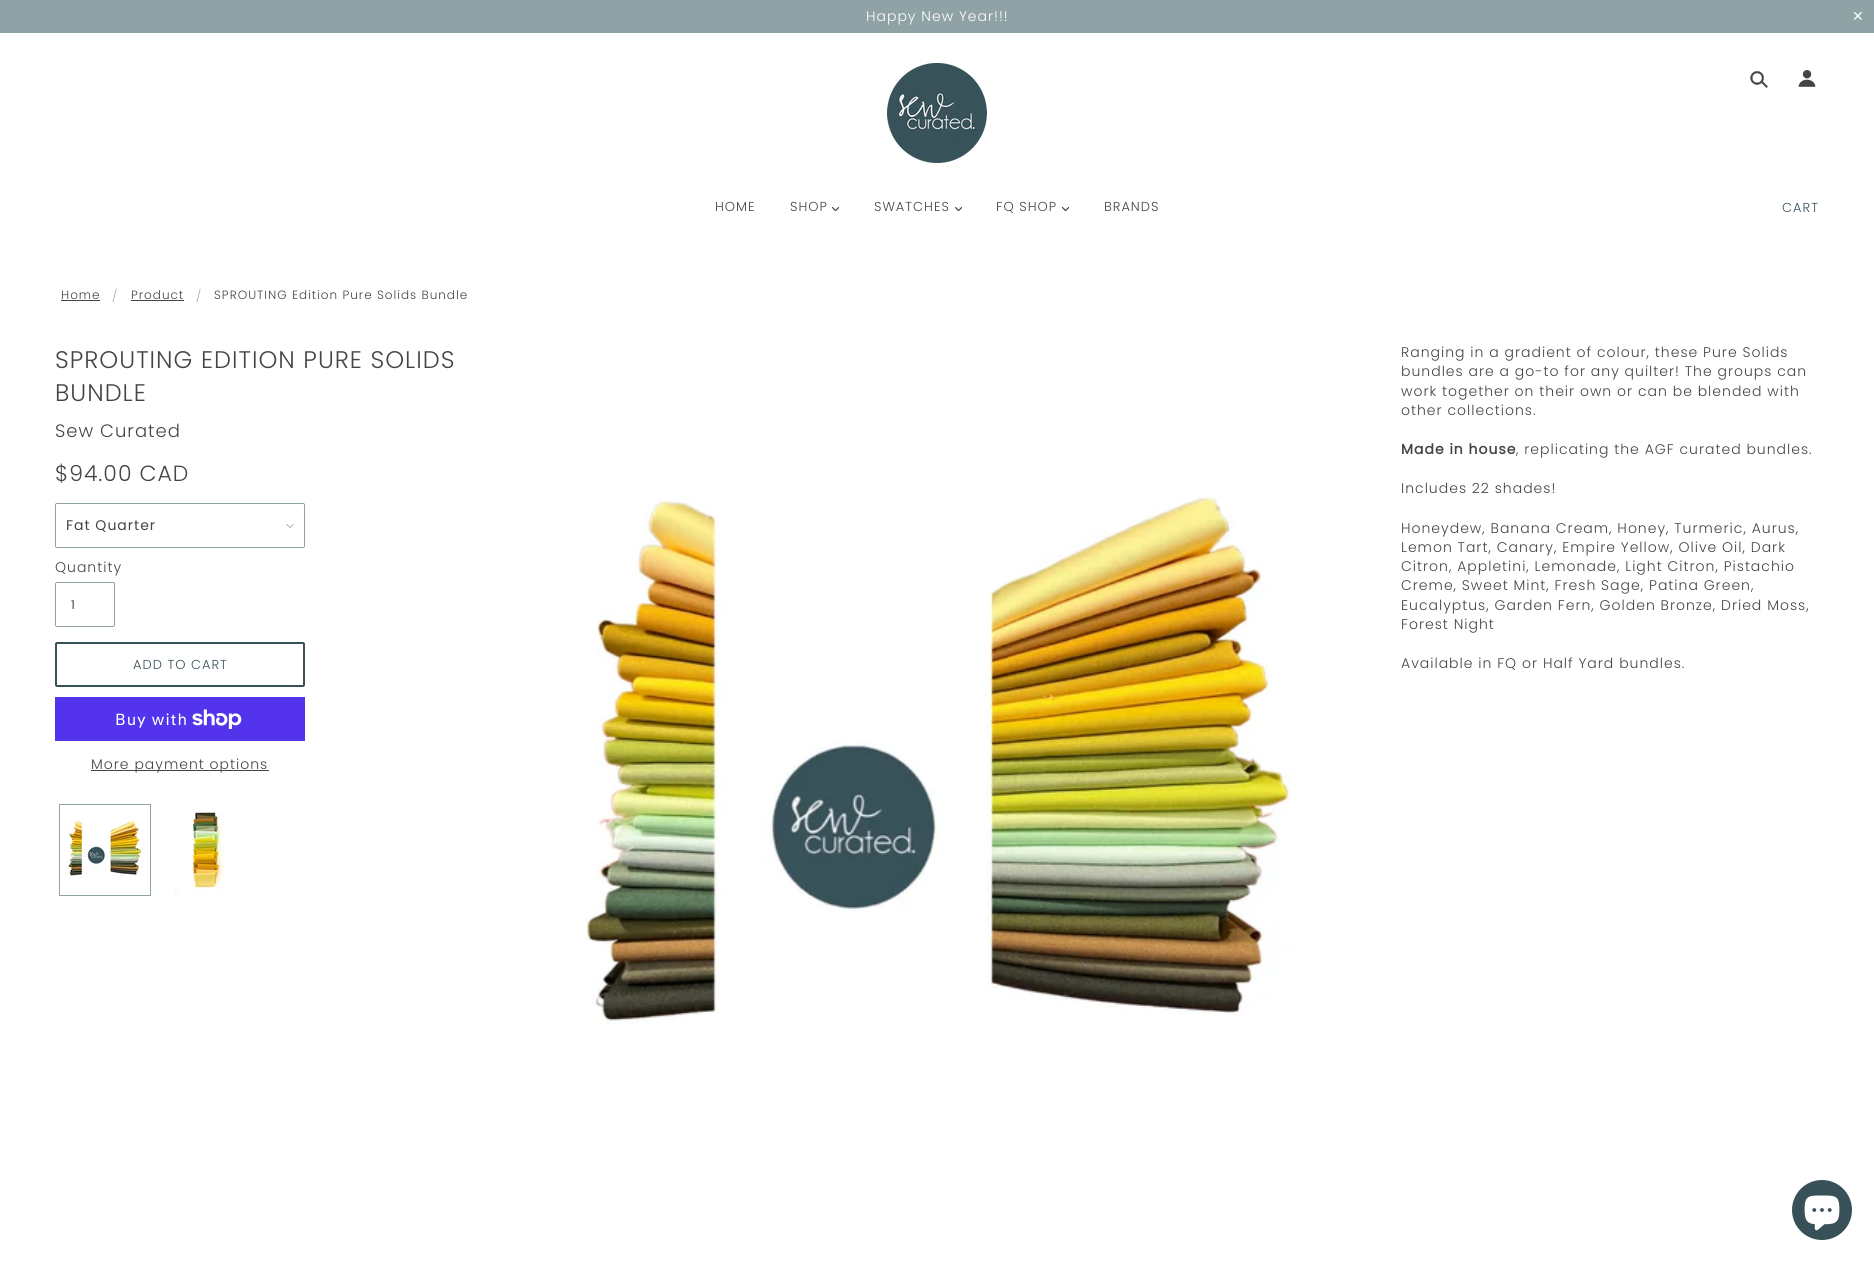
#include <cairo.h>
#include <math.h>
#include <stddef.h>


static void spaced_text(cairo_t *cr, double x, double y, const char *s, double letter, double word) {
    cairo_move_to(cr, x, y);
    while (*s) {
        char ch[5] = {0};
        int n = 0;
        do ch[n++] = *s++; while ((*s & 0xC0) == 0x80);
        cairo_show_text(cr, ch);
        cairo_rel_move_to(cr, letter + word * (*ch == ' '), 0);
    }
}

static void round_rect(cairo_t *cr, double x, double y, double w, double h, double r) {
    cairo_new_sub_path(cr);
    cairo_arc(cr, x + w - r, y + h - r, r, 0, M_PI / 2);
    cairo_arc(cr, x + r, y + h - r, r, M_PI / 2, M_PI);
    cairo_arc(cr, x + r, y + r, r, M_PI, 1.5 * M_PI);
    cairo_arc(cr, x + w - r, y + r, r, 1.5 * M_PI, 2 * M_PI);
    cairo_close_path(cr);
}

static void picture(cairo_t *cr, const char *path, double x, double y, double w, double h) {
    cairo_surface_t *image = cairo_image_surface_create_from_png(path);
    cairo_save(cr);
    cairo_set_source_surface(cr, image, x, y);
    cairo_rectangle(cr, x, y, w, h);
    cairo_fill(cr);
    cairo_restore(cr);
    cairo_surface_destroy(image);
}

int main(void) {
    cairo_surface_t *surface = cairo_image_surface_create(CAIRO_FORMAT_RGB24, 1874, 1261);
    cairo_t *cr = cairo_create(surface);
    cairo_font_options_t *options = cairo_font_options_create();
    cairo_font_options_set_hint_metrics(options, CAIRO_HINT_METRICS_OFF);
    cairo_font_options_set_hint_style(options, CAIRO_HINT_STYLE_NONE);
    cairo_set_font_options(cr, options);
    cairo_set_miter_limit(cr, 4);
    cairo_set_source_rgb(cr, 1, 1, 1);
    cairo_paint(cr);
    cairo_set_source_rgb(cr, 0.561, 0.639, 0.651);
    cairo_rectangle(cr, 0, 0, 1874, 33);
    cairo_fill(cr);
    cairo_select_font_face(cr, "Poppins Light", CAIRO_FONT_SLANT_NORMAL, CAIRO_FONT_WEIGHT_NORMAL);
    cairo_set_font_size(cr, 14);
    cairo_set_source_rgb(cr, 1, 1, 1);
    spaced_text(cr, 866, 21, "Happy New Year!!!", 1, 0);
    cairo_select_font_face(cr, "DejaVu Sans", CAIRO_FONT_SLANT_NORMAL, CAIRO_FONT_WEIGHT_NORMAL);
    cairo_move_to(cr, 1852, 21);
    cairo_show_text(cr, "✕");
    picture(cr, "img1.png", 887, 63, 100, 100);
    picture(cr, "img2.png", 1750, 71, 18, 17);
    picture(cr, "img3.png", 1798, 70, 18, 17);
    cairo_select_font_face(cr, "Poppins Light", CAIRO_FONT_SLANT_NORMAL, CAIRO_FONT_WEIGHT_NORMAL);
    cairo_set_font_size(cr, 13);
    cairo_set_source_rgb(cr, 0.267, 0.267, 0.267);
    spaced_text(cr, 715, 211, "HOME", 1, 0);
    spaced_text(cr, 790, 211, "SHOP", 1, 0);
    picture(cr, "img4.png", 832, 207, 7, 4);
    spaced_text(cr, 874, 211, "SWATCHES", 1, 0);
    picture(cr, "img4.png", 955, 207, 7, 4);
    spaced_text(cr, 996, 211, "FQ SHOP", 1, 0);
    picture(cr, "img4.png", 1062, 207, 7, 4);
    spaced_text(cr, 1104, 211, "BRANDS", 1, 0);
    cairo_set_source_rgb(cr, 0.22, 0.318, 0.345);
    spaced_text(cr, 1782, 212, "CART", 1, 0);
    cairo_set_font_size(cr, 12);
    cairo_set_source_rgb(cr, 0.267, 0.267, 0.267);
    spaced_text(cr, 61, 299, "Home", 1, 0);
    cairo_rectangle(cr, 61, 300, 39, 1);
    cairo_fill(cr);
    cairo_set_source_rgb(cr, 0.667, 0.667, 0.667);
    spaced_text(cr, 112, 300, "/", 1, 0);
    cairo_set_source_rgb(cr, 0.267, 0.267, 0.267);
    spaced_text(cr, 131, 299, "Product", 1, 0);
    cairo_rectangle(cr, 131, 300, 53, 1);
    cairo_fill(cr);
    cairo_set_source_rgb(cr, 0.667, 0.667, 0.667);
    spaced_text(cr, 196, 300, "/", 1, 0);
    cairo_set_source_rgb(cr, 0.267, 0.267, 0.267);
    spaced_text(cr, 214, 299, "SPROUTING Edition Pure Solids Bundle", 1, 0);
    cairo_set_font_size(cr, 24);
    spaced_text(cr, 55, 368, "SPROUTING EDITION PURE SOLIDS", 1, 0);
    spaced_text(cr, 55, 401, "BUNDLE", 1, 0);
    cairo_set_font_size(cr, 18);
    spaced_text(cr, 55, 437, "Sew Curated", 1, 0);
    cairo_set_font_size(cr, 14);
    spaced_text(cr, 1401, 357, "Ranging in a gradient of colour, these Pure Solids", 1, 0);
    spaced_text(cr, 1401, 376, "bundles are a go-to for any quilter! The groups can", 1, 0);
    spaced_text(cr, 1401, 396, "work together on their own or can be blended with", 1, 0);
    spaced_text(cr, 1401, 415, "other collections.", 1, 0);
    cairo_select_font_face(cr, "Poppins", CAIRO_FONT_SLANT_NORMAL, CAIRO_FONT_WEIGHT_BOLD);
    spaced_text(cr, 1401, 454, "Made in house", 1, 0);
    cairo_select_font_face(cr, "Poppins Light", CAIRO_FONT_SLANT_NORMAL, CAIRO_FONT_WEIGHT_NORMAL);
    spaced_text(cr, 1516, 454, ", replicating the AGF curated bundles.", 1, 0);
    spaced_text(cr, 1401, 493, "Includes 22 shades!", 1, 0);
    spaced_text(cr, 1401, 533, "Honeydew, Banana Cream, Honey, Turmeric, Aurus,", 1, 0);
    spaced_text(cr, 1401, 552, "Lemon Tart, Canary, Empire Yellow, Olive Oil, Dark", 1, 0);
    spaced_text(cr, 1401, 571, "Citron, Appletini, Lemonade, Light Citron, Pistachio", 1, 0);
    spaced_text(cr, 1401, 590, "Creme, Sweet Mint, Fresh Sage, Patina Green,", 1, 0);
    spaced_text(cr, 1401, 610, "Eucalyptus, Garden Fern, Golden Bronze, Dried Moss,", 1, 0);
    spaced_text(cr, 1401, 629, "Forest Night", 1, 0);
    spaced_text(cr, 1401, 668, "Available in FQ or Half Yard bundles.", 1, 0);
    cairo_set_font_size(cr, 22);
    spaced_text(cr, 55, 481, "$94.00 CAD", 1, 0);
    picture(cr, "img5.png", 286, 524, 8, 4);
    round_rect(cr, 55.5, 503.5, 249, 44, 1.5);
    cairo_set_source_rgb(cr, 0.561, 0.639, 0.651);
    cairo_set_line_width(cr, 1);
    cairo_stroke(cr);
    cairo_select_font_face(cr, "Poppins", CAIRO_FONT_SLANT_NORMAL, CAIRO_FONT_WEIGHT_NORMAL);
    cairo_set_font_size(cr, 14);
    cairo_set_source_rgb(cr, 0.267, 0.267, 0.267);
    spaced_text(cr, 66, 530, "Fat Quarter", 1, 0);
    cairo_select_font_face(cr, "Poppins Light", CAIRO_FONT_SLANT_NORMAL, CAIRO_FONT_WEIGHT_NORMAL);
    spaced_text(cr, 55, 572, "Quantity", 1, 0);
    round_rect(cr, 55.5, 582.5, 59, 44, 1.5);
    cairo_set_source_rgb(cr, 0.561, 0.639, 0.651);
    cairo_stroke(cr);
    cairo_select_font_face(cr, "Poppins", CAIRO_FONT_SLANT_NORMAL, CAIRO_FONT_WEIGHT_NORMAL);
    cairo_set_font_size(cr, 12);
    cairo_set_source_rgb(cr, 0.267, 0.267, 0.267);
    spaced_text(cr, 71, 609, "1", 1, 0);
    round_rect(cr, 56, 643, 248, 43, 1);
    cairo_set_source_rgb(cr, 0.22, 0.318, 0.345);
    cairo_set_line_width(cr, 2);
    cairo_stroke(cr);
    cairo_select_font_face(cr, "Poppins Light", CAIRO_FONT_SLANT_NORMAL, CAIRO_FONT_WEIGHT_NORMAL);
    cairo_set_font_size(cr, 13);
    spaced_text(cr, 133, 669, "ADD TO CART", 1, 0);
    cairo_set_source_rgb(cr, 0.329, 0.2, 0.922);
    cairo_rectangle(cr, 55, 697, 250, 44);
    cairo_fill(cr);
    cairo_select_font_face(cr, "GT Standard", CAIRO_FONT_SLANT_NORMAL, CAIRO_FONT_WEIGHT_NORMAL);
    cairo_set_font_size(cr, 16);
    cairo_set_source_rgb(cr, 1, 1, 1);
    spaced_text(cr, 115, 725, "Buy with", 1, 0);
    picture(cr, "img6.png", 192, 709, 50, 20);
    cairo_set_source_rgb(cr, 0.267, 0.267, 0.267);
    cairo_rectangle(cr, 91, 770, 178, 1);
    cairo_fill(cr);
    cairo_select_font_face(cr, "Poppins Light", CAIRO_FONT_SLANT_NORMAL, CAIRO_FONT_WEIGHT_NORMAL);
    cairo_set_font_size(cr, 14);
    spaced_text(cr, 91, 769, "More payment options", 1, 0);
    picture(cr, "img7.png", 67, 820, 79, 57);
    cairo_rectangle(cr, 59.5, 804.5, 91, 91);
    cairo_set_source_rgb(cr, 0.561, 0.639, 0.651);
    cairo_set_line_width(cr, 1);
    cairo_stroke(cr);
    picture(cr, "img8.png", 174, 810, 50, 85);
    picture(cr, "img9.png", 586, 496, 706, 529);
    cairo_set_source_rgb(cr, 0.22, 0.318, 0.345);
    cairo_arc(cr, 1822, 1210, 30, 0, 2 * M_PI);
    cairo_fill(cr);
    picture(cr, "img10.png", 1804, 1195, 36, 36);
    cairo_surface_write_to_png(surface, "page.png");
    cairo_font_options_destroy(options);
    cairo_destroy(cr);
    cairo_surface_destroy(surface);
    return 0;
}
